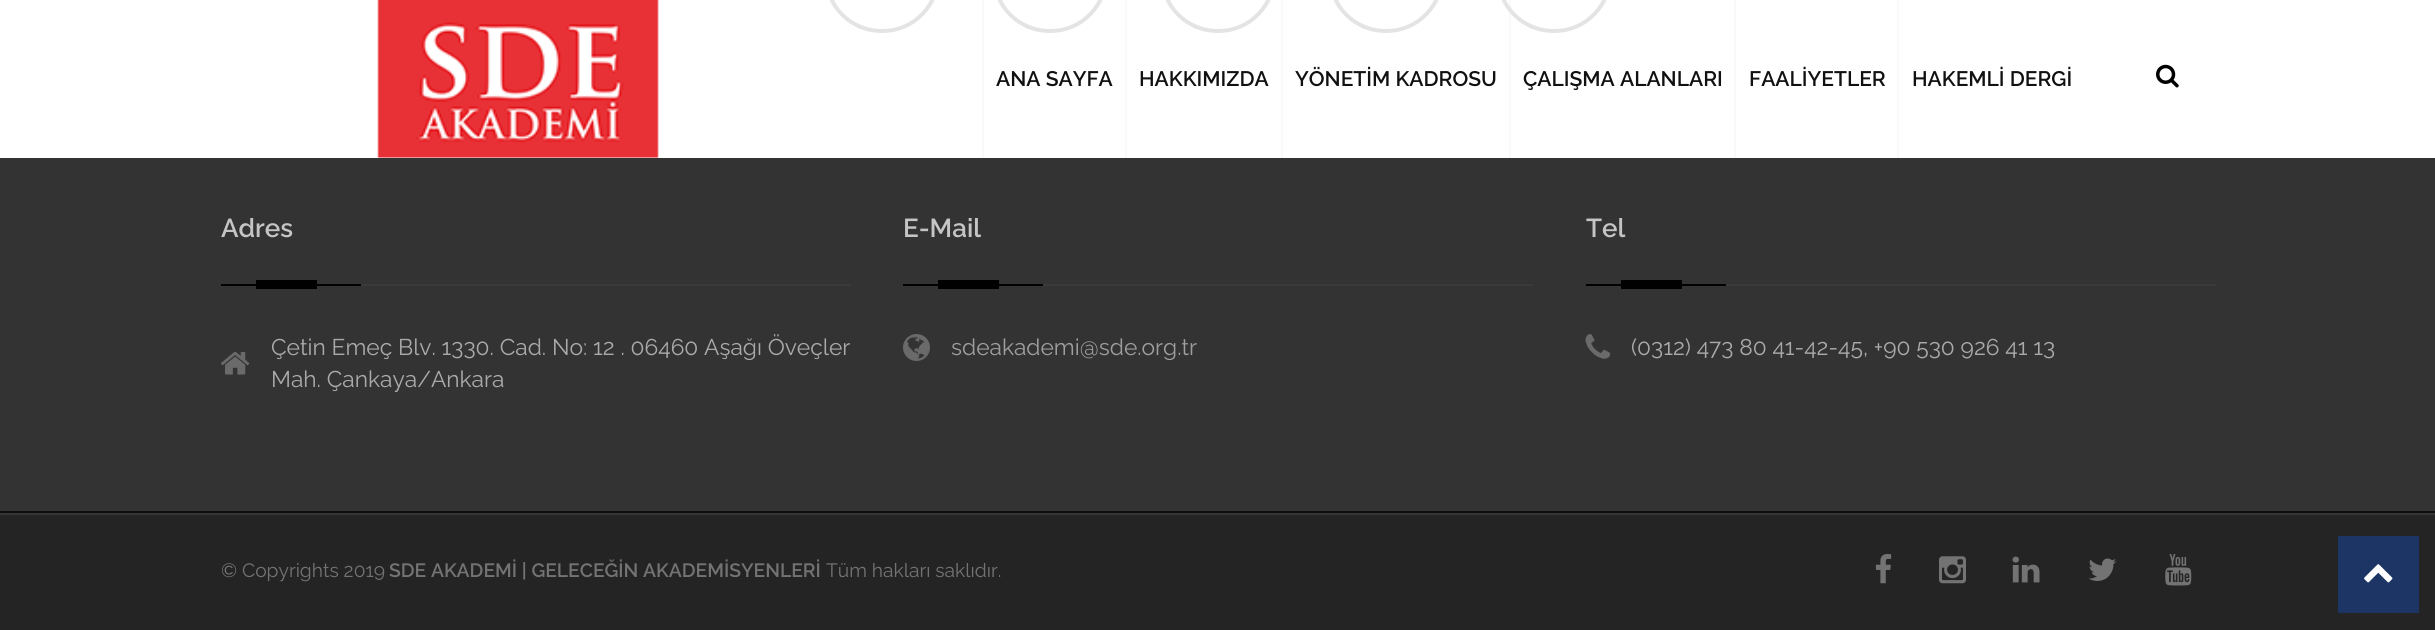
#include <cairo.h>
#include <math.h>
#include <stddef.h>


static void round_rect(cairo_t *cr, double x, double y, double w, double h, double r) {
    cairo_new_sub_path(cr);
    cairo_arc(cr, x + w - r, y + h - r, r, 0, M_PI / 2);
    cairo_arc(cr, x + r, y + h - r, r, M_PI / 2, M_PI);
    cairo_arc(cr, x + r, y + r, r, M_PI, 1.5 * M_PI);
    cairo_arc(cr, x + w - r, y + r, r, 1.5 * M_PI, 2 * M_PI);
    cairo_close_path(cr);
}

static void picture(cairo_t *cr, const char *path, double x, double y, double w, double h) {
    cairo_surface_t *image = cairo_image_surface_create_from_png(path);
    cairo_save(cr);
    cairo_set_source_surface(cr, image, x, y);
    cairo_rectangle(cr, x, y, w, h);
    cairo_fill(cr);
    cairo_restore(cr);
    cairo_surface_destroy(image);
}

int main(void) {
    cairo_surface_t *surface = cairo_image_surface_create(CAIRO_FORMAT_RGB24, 2435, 630);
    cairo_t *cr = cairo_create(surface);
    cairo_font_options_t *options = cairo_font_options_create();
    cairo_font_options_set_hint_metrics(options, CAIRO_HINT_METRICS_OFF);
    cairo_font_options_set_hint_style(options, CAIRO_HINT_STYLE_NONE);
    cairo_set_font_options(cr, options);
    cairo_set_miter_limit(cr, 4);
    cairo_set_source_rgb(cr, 0.2, 0.2, 0.2);
    cairo_paint(cr);
    cairo_set_source_rgb(cr, 1, 1, 1);
    cairo_rectangle(cr, 0, 0, 2435, 158);
    cairo_fill(cr);
    picture(cr, "img1.png", 377, 0, 282, 158);
    cairo_set_source_rgb(cr, 0.976, 0.976, 0.976);
    cairo_rectangle(cr, 982, 0, 2, 158);
    cairo_fill(cr);
    cairo_select_font_face(cr, "Raleway SemiBold", CAIRO_FONT_SLANT_NORMAL, CAIRO_FONT_WEIGHT_NORMAL);
    cairo_set_font_size(cr, 21);
    cairo_set_source_rgb(cr, 0.067, 0.067, 0.071);
    cairo_move_to(cr, 996, 86);
    cairo_show_text(cr, "ANA SAYFA");
    cairo_set_source_rgb(cr, 0.976, 0.976, 0.976);
    cairo_rectangle(cr, 1125, 0, 2, 158);
    cairo_fill(cr);
    cairo_set_source_rgb(cr, 0.067, 0.067, 0.071);
    cairo_move_to(cr, 1139, 86);
    cairo_show_text(cr, "HAKKIMIZDA");
    cairo_set_source_rgb(cr, 0.976, 0.976, 0.976);
    cairo_rectangle(cr, 1281, 0, 2, 158);
    cairo_fill(cr);
    cairo_set_source_rgb(cr, 0.067, 0.067, 0.071);
    cairo_move_to(cr, 1295, 86);
    cairo_show_text(cr, "YÖNETİM KADROSU");
    cairo_set_source_rgb(cr, 0.976, 0.976, 0.976);
    cairo_rectangle(cr, 1509, 0, 2, 158);
    cairo_fill(cr);
    cairo_set_source_rgb(cr, 0.067, 0.067, 0.071);
    cairo_move_to(cr, 1523, 86);
    cairo_show_text(cr, "ÇALIŞMA ALANLARI");
    cairo_set_source_rgb(cr, 0.976, 0.976, 0.976);
    cairo_rectangle(cr, 1734, 0, 2, 158);
    cairo_fill(cr);
    cairo_set_source_rgb(cr, 0.067, 0.067, 0.071);
    cairo_move_to(cr, 1749, 86);
    cairo_show_text(cr, "FAALİYETLER");
    cairo_set_source_rgb(cr, 0.976, 0.976, 0.976);
    cairo_rectangle(cr, 1897, 0, 2, 158);
    cairo_fill(cr);
    cairo_set_source_rgb(cr, 0.067, 0.067, 0.071);
    cairo_move_to(cr, 1912, 86);
    cairo_show_text(cr, "HAKEMLİ DERGİ");
    picture(cr, "img2.png", 2156, 64, 23, 24);
    round_rect(cr, 826, -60, 112, 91, 55.5);
    cairo_set_source_rgb(cr, 0.894, 0.894, 0.894);
    cairo_set_line_width(cr, 4);
    cairo_stroke(cr);
    round_rect(cr, 994, -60, 112, 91, 55.5);
    cairo_stroke(cr);
    round_rect(cr, 1162, -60, 112, 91, 55.5);
    cairo_stroke(cr);
    round_rect(cr, 1330, -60, 112, 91, 55.5);
    cairo_stroke(cr);
    round_rect(cr, 1498, -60, 112, 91, 55.5);
    cairo_stroke(cr);
    cairo_set_source_rgb(cr, 0.059, 0.059, 0.059);
    cairo_rectangle(cr, 0, 511, 2435, 2);
    cairo_fill(cr);
    cairo_set_source_rgb(cr, 0.227, 0.227, 0.227);
    cairo_rectangle(cr, 361, 284, 490, 2);
    cairo_fill(cr);
    cairo_set_font_size(cr, 26);
    cairo_set_source_rgb(cr, 0.773, 0.773, 0.773);
    cairo_move_to(cr, 221, 237);
    cairo_show_text(cr, "Adres");
    cairo_set_source_rgb(cr, 0.004, 0.004, 0.004);
    cairo_rectangle(cr, 256, 280, 61, 9);
    cairo_fill(cr);
    cairo_rectangle(cr, 221, 284, 140, 2);
    cairo_fill(cr);
    picture(cr, "img3.png", 221, 352, 29, 23);
    cairo_select_font_face(cr, "Raleway", CAIRO_FONT_SLANT_NORMAL, CAIRO_FONT_WEIGHT_NORMAL);
    cairo_set_font_size(cr, 22.75);
    cairo_set_source_rgb(cr, 0.667, 0.667, 0.667);
    cairo_move_to(cr, 271, 355);
    cairo_show_text(cr, "Çetin Emeç Blv. 1330. Cad. No: 12 . 06460 Aşağı Öveçler");
    cairo_move_to(cr, 271, 387);
    cairo_show_text(cr, "Mah. Çankaya/Ankara");
    cairo_set_source_rgb(cr, 0.227, 0.227, 0.227);
    cairo_rectangle(cr, 1043, 284, 490, 2);
    cairo_fill(cr);
    cairo_select_font_face(cr, "Raleway SemiBold", CAIRO_FONT_SLANT_NORMAL, CAIRO_FONT_WEIGHT_NORMAL);
    cairo_set_font_size(cr, 26);
    cairo_set_source_rgb(cr, 0.773, 0.773, 0.773);
    cairo_move_to(cr, 903, 237);
    cairo_show_text(cr, "E-Mail");
    cairo_set_source_rgb(cr, 0.004, 0.004, 0.004);
    cairo_rectangle(cr, 938, 280, 61, 9);
    cairo_fill(cr);
    cairo_rectangle(cr, 903, 284, 140, 2);
    cairo_fill(cr);
    picture(cr, "img4.png", 903, 334, 27, 27);
    cairo_select_font_face(cr, "Raleway", CAIRO_FONT_SLANT_NORMAL, CAIRO_FONT_WEIGHT_NORMAL);
    cairo_set_font_size(cr, 22.75);
    cairo_set_source_rgb(cr, 0.62, 0.62, 0.62);
    cairo_move_to(cr, 951, 355);
    cairo_show_text(cr, "sdeakademi@sde.org.tr");
    cairo_set_source_rgb(cr, 0.227, 0.227, 0.227);
    cairo_rectangle(cr, 1726, 284, 490, 2);
    cairo_fill(cr);
    cairo_select_font_face(cr, "Raleway SemiBold", CAIRO_FONT_SLANT_NORMAL, CAIRO_FONT_WEIGHT_NORMAL);
    cairo_set_font_size(cr, 26);
    cairo_set_source_rgb(cr, 0.773, 0.773, 0.773);
    cairo_move_to(cr, 1586, 237);
    cairo_show_text(cr, "Tel");
    cairo_set_source_rgb(cr, 0.004, 0.004, 0.004);
    cairo_rectangle(cr, 1621, 280, 61, 9);
    cairo_fill(cr);
    cairo_rectangle(cr, 1586, 284, 140, 2);
    cairo_fill(cr);
    picture(cr, "img5.png", 1585, 334, 26, 25);
    cairo_select_font_face(cr, "Raleway", CAIRO_FONT_SLANT_NORMAL, CAIRO_FONT_WEIGHT_NORMAL);
    cairo_set_font_size(cr, 22.75);
    cairo_set_source_rgb(cr, 0.667, 0.667, 0.667);
    cairo_move_to(cr, 1631, 355);
    cairo_show_text(cr, "(0312) 473 80 41-42-45, +90 530 926 41 13");
    cairo_set_source_rgb(cr, 0.141, 0.141, 0.141);
    cairo_rectangle(cr, 0, 515, 2435, 115);
    cairo_fill(cr);
    cairo_set_source_rgb(cr, 0.212, 0.212, 0.212);
    cairo_rectangle(cr, 0, 513, 2435, 2);
    cairo_fill(cr);
    cairo_set_font_size(cr, 19.25);
    cairo_set_source_rgb(cr, 0.451, 0.451, 0.451);
    cairo_move_to(cr, 221, 577);
    cairo_show_text(cr, "© Copyrights 2019");
    cairo_select_font_face(cr, "Raleway SemiBold", CAIRO_FONT_SLANT_NORMAL, CAIRO_FONT_WEIGHT_NORMAL);
    cairo_move_to(cr, 389, 577);
    cairo_show_text(cr, "SDE AKADEMİ | GELECEĞİN AKADEMİSYENLERİ");
    cairo_select_font_face(cr, "Raleway", CAIRO_FONT_SLANT_NORMAL, CAIRO_FONT_WEIGHT_NORMAL);
    cairo_move_to(cr, 826, 577);
    cairo_show_text(cr, "Tüm hakları saklıdır.");
    picture(cr, "img6.png", 1875, 554, 17, 30);
    picture(cr, "img7.png", 1939, 556, 27, 28);
    picture(cr, "img8.png", 2012, 556, 28, 27);
    picture(cr, "img9.png", 2088, 558, 28, 23);
    picture(cr, "img10.png", 2165, 554, 27, 32);
    cairo_set_source_rgb(cr, 0.11, 0.208, 0.396);
    cairo_rectangle(cr, 2338, 536, 81, 77);
    cairo_fill(cr);
    picture(cr, "img11.png", 2364, 564, 29, 19);
    cairo_surface_write_to_png(surface, "page.png");
    cairo_font_options_destroy(options);
    cairo_destroy(cr);
    cairo_surface_destroy(surface);
    return 0;
}
